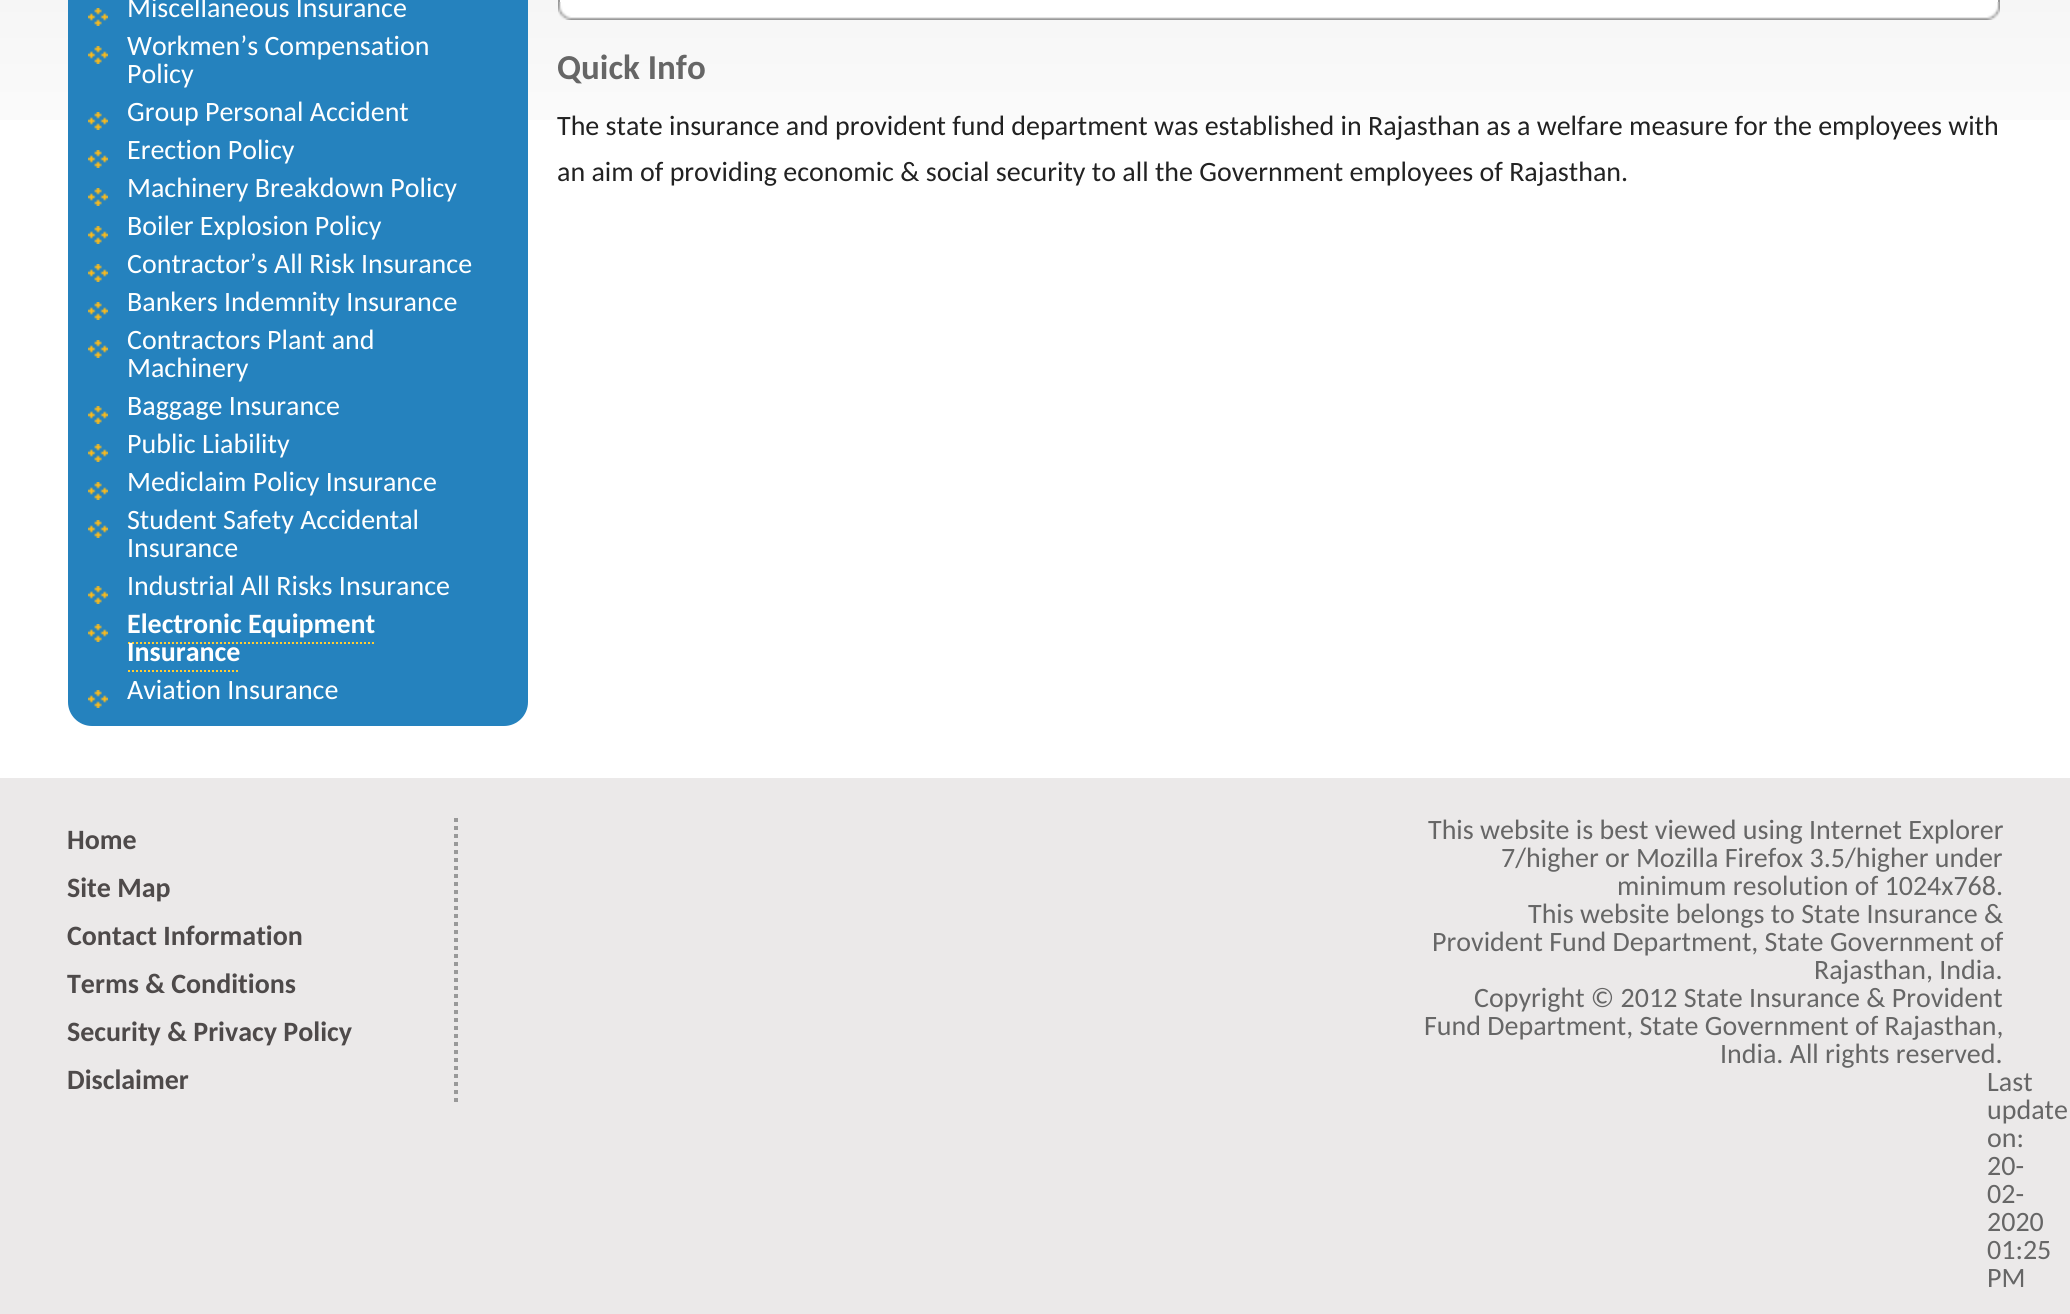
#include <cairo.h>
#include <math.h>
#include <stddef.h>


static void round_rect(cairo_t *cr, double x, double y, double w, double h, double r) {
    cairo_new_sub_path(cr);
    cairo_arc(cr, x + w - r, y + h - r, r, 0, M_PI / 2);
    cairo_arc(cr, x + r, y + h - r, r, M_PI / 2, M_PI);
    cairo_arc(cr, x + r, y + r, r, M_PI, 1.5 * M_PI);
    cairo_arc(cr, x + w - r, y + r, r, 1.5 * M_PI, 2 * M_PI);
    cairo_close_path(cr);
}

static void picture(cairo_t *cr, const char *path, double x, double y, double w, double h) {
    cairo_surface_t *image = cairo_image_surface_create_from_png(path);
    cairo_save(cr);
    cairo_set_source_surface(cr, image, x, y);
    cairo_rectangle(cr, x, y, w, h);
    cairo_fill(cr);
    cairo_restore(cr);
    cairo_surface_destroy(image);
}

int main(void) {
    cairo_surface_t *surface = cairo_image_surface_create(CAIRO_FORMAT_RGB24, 2070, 1314);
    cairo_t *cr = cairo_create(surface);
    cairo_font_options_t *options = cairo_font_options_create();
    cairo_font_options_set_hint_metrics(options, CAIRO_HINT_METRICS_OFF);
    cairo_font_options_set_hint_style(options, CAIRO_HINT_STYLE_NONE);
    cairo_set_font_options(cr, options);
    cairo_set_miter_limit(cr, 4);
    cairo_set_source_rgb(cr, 1, 1, 1);
    cairo_paint(cr);
    picture(cr, "img1.png", 0, 0, 2070, 120);
    cairo_set_source_rgb(cr, 0.145, 0.51, 0.745);
    round_rect(cr, 68, -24, 460, 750, 24);
    cairo_fill(cr);
    picture(cr, "img2.png", 88, 8, 20, 18);
    cairo_select_font_face(cr, "Carlito", CAIRO_FONT_SLANT_NORMAL, CAIRO_FONT_WEIGHT_NORMAL);
    cairo_set_font_size(cr, 28);
    cairo_set_source_rgb(cr, 1, 1, 1);
    cairo_move_to(cr, 127, 17);
    cairo_show_text(cr, "Miscellaneous Insurance");
    picture(cr, "img2.png", 88, 46, 20, 18);
    cairo_move_to(cr, 127, 55);
    cairo_show_text(cr, "Workmen’s Compensation");
    cairo_move_to(cr, 127, 83);
    cairo_show_text(cr, "Policy");
    picture(cr, "img2.png", 88, 112, 20, 18);
    cairo_move_to(cr, 127, 121);
    cairo_show_text(cr, "Group Personal Accident");
    picture(cr, "img2.png", 88, 150, 20, 18);
    cairo_move_to(cr, 127, 159);
    cairo_show_text(cr, "Erection Policy");
    picture(cr, "img2.png", 88, 188, 20, 18);
    cairo_move_to(cr, 127, 197);
    cairo_show_text(cr, "Machinery Breakdown Policy");
    picture(cr, "img2.png", 88, 226, 20, 18);
    cairo_move_to(cr, 127, 235);
    cairo_show_text(cr, "Boiler Explosion Policy");
    picture(cr, "img2.png", 88, 264, 20, 18);
    cairo_move_to(cr, 127, 273);
    cairo_show_text(cr, "Contractor’s All Risk Insurance");
    picture(cr, "img2.png", 88, 302, 20, 18);
    cairo_move_to(cr, 127, 311);
    cairo_show_text(cr, "Bankers Indemnity Insurance");
    picture(cr, "img2.png", 88, 340, 20, 18);
    cairo_move_to(cr, 127, 349);
    cairo_show_text(cr, "Contractors Plant and");
    cairo_move_to(cr, 127, 377);
    cairo_show_text(cr, "Machinery");
    picture(cr, "img2.png", 88, 406, 20, 18);
    cairo_move_to(cr, 127, 415);
    cairo_show_text(cr, "Baggage Insurance");
    picture(cr, "img2.png", 88, 444, 20, 18);
    cairo_move_to(cr, 127, 453);
    cairo_show_text(cr, "Public Liability");
    picture(cr, "img2.png", 88, 482, 20, 18);
    cairo_move_to(cr, 127, 491);
    cairo_show_text(cr, "Mediclaim Policy Insurance");
    picture(cr, "img2.png", 88, 520, 20, 18);
    cairo_move_to(cr, 127, 529);
    cairo_show_text(cr, "Student Safety Accidental");
    cairo_move_to(cr, 127, 557);
    cairo_show_text(cr, "Insurance");
    picture(cr, "img2.png", 88, 586, 20, 18);
    cairo_move_to(cr, 127, 595);
    cairo_show_text(cr, "Industrial All Risks Insurance");
    picture(cr, "img2.png", 88, 624, 20, 18);
    cairo_select_font_face(cr, "Carlito", CAIRO_FONT_SLANT_NORMAL, CAIRO_FONT_WEIGHT_BOLD);
    cairo_move_to(cr, 127, 633);
    cairo_show_text(cr, "Electronic Equipment");
    cairo_new_path(cr);
    cairo_move_to(cr, 128, 643);
    cairo_line_to(cr, 376, 643);
    cairo_set_source_rgb(cr, 1, 0.8, 0.2);
    cairo_set_dash(cr, (double[]){2, 2}, 2, 0);
    cairo_stroke(cr);
    cairo_set_source_rgb(cr, 1, 1, 1);
    cairo_move_to(cr, 127, 661);
    cairo_show_text(cr, "Insurance");
    cairo_new_path(cr);
    cairo_move_to(cr, 128, 671);
    cairo_line_to(cr, 240, 671);
    cairo_set_source_rgb(cr, 1, 0.8, 0.2);
    cairo_stroke(cr);
    picture(cr, "img2.png", 88, 690, 20, 18);
    cairo_select_font_face(cr, "Carlito", CAIRO_FONT_SLANT_NORMAL, CAIRO_FONT_WEIGHT_NORMAL);
    cairo_set_source_rgb(cr, 1, 1, 1);
    cairo_move_to(cr, 127, 699);
    cairo_show_text(cr, "Aviation Insurance");
    cairo_rectangle(cr, 558, 0, 1442, 2);
    cairo_fill(cr);
    cairo_set_source_rgb(cr, 0.6, 0.6, 0.6);
    cairo_rectangle(cr, 1998, 0, 2, 2);
    cairo_fill(cr);
    cairo_rectangle(cr, 558, 0, 2, 2);
    cairo_fill(cr);
    picture(cr, "img3.png", 558, 2, 1424, 18);
    picture(cr, "img4.png", 1982, 2, 18, 18);
    cairo_select_font_face(cr, "Carlito", CAIRO_FONT_SLANT_NORMAL, CAIRO_FONT_WEIGHT_BOLD);
    cairo_set_font_size(cr, 35);
    cairo_set_source_rgb(cr, 0.4, 0.4, 0.4);
    cairo_move_to(cr, 557, 79);
    cairo_show_text(cr, "Quick Info");
    cairo_select_font_face(cr, "Carlito", CAIRO_FONT_SLANT_NORMAL, CAIRO_FONT_WEIGHT_NORMAL);
    cairo_set_font_size(cr, 28);
    cairo_set_source_rgb(cr, 0.133, 0.133, 0.133);
    cairo_move_to(cr, 557, 135);
    cairo_show_text(cr, "The state insurance and provident fund department was established in Rajasthan as a welfare measure for the employees with");
    cairo_move_to(cr, 557, 181);
    cairo_show_text(cr, "an aim of providing economic & social security to all the Government employees of Rajasthan.");
    cairo_set_source_rgb(cr, 0.918, 0.914, 0.914);
    cairo_rectangle(cr, 0, 778, 2070, 536);
    cairo_fill(cr);
    cairo_new_path(cr);
    cairo_move_to(cr, 456, 818);
    cairo_line_to(cr, 456, 1106);
    cairo_set_source_rgb(cr, 0.6, 0.6, 0.6);
    cairo_set_line_width(cr, 4);
    cairo_set_dash(cr, (double[]){4, 4}, 2, 0);
    cairo_stroke(cr);
    cairo_select_font_face(cr, "Carlito", CAIRO_FONT_SLANT_NORMAL, CAIRO_FONT_WEIGHT_BOLD);
    cairo_set_source_rgb(cr, 0.306, 0.29, 0.29);
    cairo_move_to(cr, 67, 849);
    cairo_show_text(cr, "Home");
    cairo_move_to(cr, 67, 897);
    cairo_show_text(cr, "Site Map");
    cairo_move_to(cr, 67, 945);
    cairo_show_text(cr, "Contact Information");
    cairo_move_to(cr, 67, 993);
    cairo_show_text(cr, "Terms & Conditions");
    cairo_move_to(cr, 67, 1041);
    cairo_show_text(cr, "Security & Privacy Policy");
    cairo_move_to(cr, 67, 1089);
    cairo_show_text(cr, "Disclaimer");
    cairo_select_font_face(cr, "Carlito", CAIRO_FONT_SLANT_NORMAL, CAIRO_FONT_WEIGHT_NORMAL);
    cairo_set_source_rgb(cr, 0.4, 0.4, 0.4);
    cairo_move_to(cr, 1428, 839);
    cairo_show_text(cr, "This website is best viewed using Internet Explorer");
    cairo_move_to(cr, 1501, 867);
    cairo_show_text(cr, "7/higher or Mozilla Firefox 3.5/higher under");
    cairo_move_to(cr, 1617, 895);
    cairo_show_text(cr, "minimum resolution of 1024x768.");
    cairo_move_to(cr, 1528, 923);
    cairo_show_text(cr, "This website belongs to State Insurance &");
    cairo_move_to(cr, 1432, 951);
    cairo_show_text(cr, "Provident Fund Department, State Government of");
    cairo_move_to(cr, 1814, 979);
    cairo_show_text(cr, "Rajasthan, India.");
    cairo_move_to(cr, 1474, 1007);
    cairo_show_text(cr, "Copyright © 2012 State Insurance & Provident");
    cairo_move_to(cr, 1424, 1035);
    cairo_show_text(cr, "Fund Department, State Government of Rajasthan,");
    cairo_move_to(cr, 1720, 1063);
    cairo_show_text(cr, "India. All rights reserved.");
    cairo_move_to(cr, 1987, 1091);
    cairo_show_text(cr, "Last");
    cairo_move_to(cr, 1987, 1119);
    cairo_show_text(cr, "update");
    cairo_move_to(cr, 1987, 1147);
    cairo_show_text(cr, "on:");
    cairo_move_to(cr, 1987, 1175);
    cairo_show_text(cr, "20-");
    cairo_move_to(cr, 1987, 1203);
    cairo_show_text(cr, "02-");
    cairo_move_to(cr, 1987, 1231);
    cairo_show_text(cr, "2020");
    cairo_move_to(cr, 1987, 1259);
    cairo_show_text(cr, "01:25");
    cairo_move_to(cr, 1987, 1287);
    cairo_show_text(cr, "PM");
    cairo_surface_write_to_png(surface, "page.png");
    cairo_font_options_destroy(options);
    cairo_destroy(cr);
    cairo_surface_destroy(surface);
    return 0;
}
